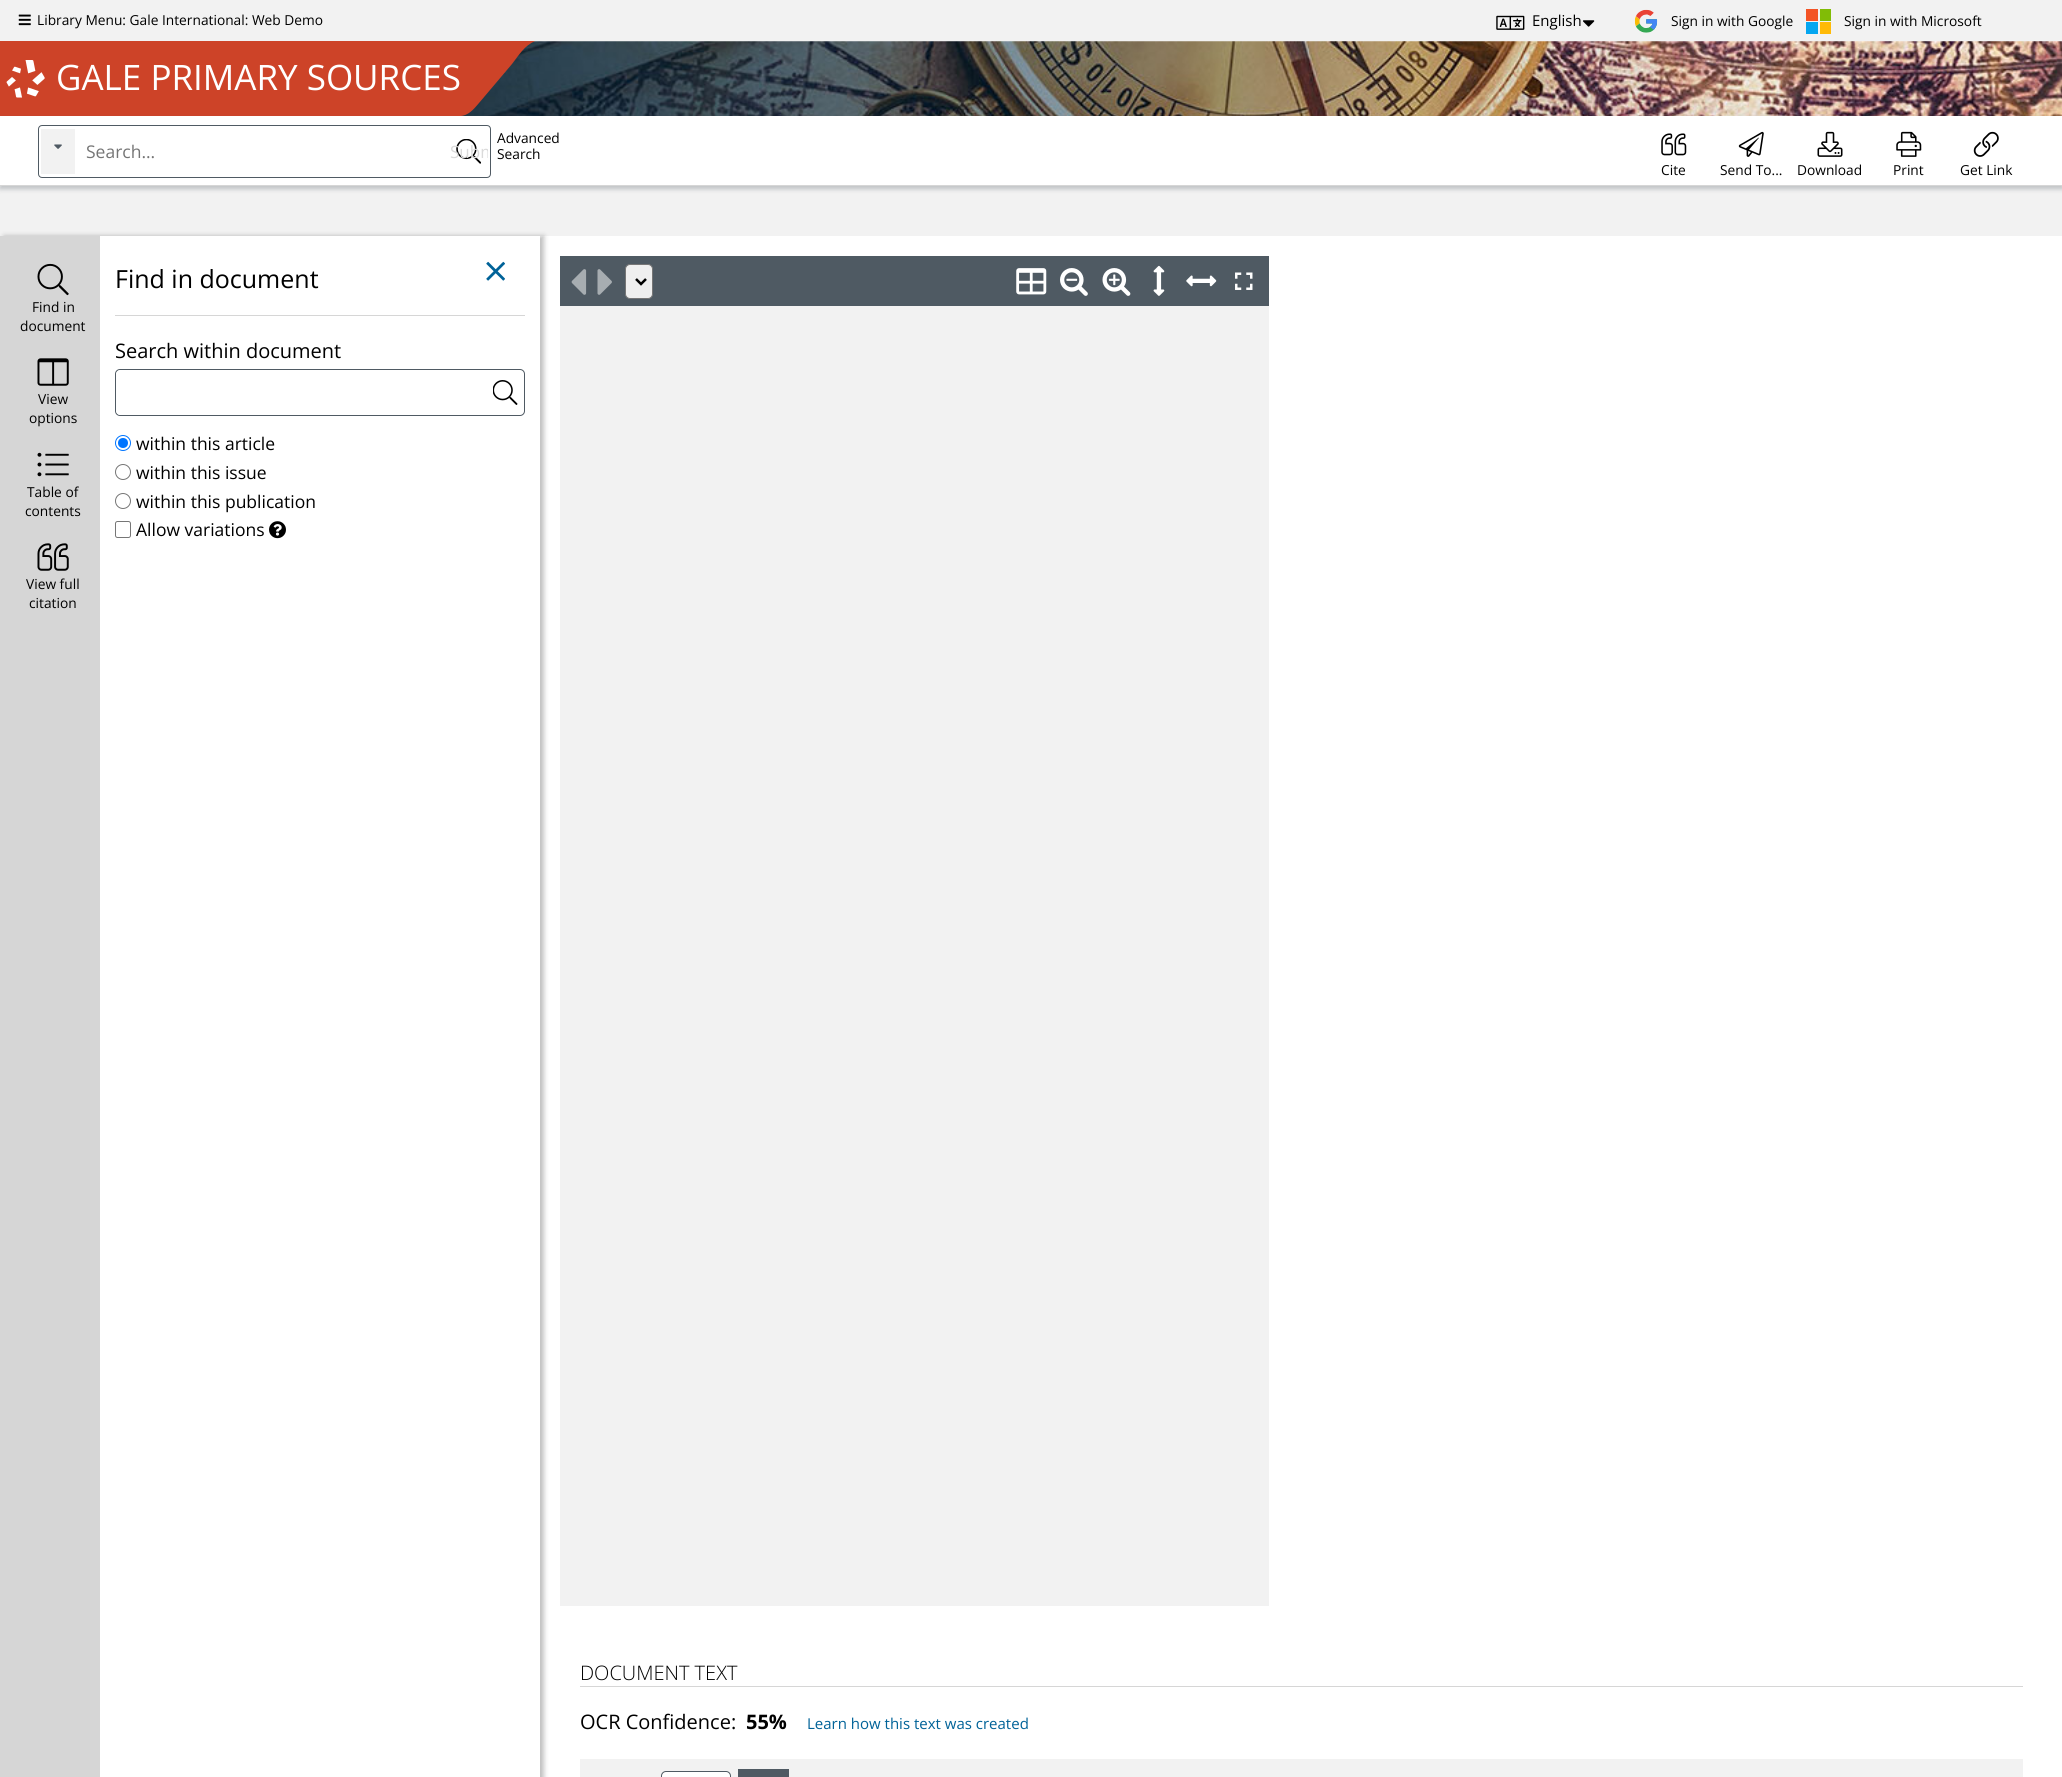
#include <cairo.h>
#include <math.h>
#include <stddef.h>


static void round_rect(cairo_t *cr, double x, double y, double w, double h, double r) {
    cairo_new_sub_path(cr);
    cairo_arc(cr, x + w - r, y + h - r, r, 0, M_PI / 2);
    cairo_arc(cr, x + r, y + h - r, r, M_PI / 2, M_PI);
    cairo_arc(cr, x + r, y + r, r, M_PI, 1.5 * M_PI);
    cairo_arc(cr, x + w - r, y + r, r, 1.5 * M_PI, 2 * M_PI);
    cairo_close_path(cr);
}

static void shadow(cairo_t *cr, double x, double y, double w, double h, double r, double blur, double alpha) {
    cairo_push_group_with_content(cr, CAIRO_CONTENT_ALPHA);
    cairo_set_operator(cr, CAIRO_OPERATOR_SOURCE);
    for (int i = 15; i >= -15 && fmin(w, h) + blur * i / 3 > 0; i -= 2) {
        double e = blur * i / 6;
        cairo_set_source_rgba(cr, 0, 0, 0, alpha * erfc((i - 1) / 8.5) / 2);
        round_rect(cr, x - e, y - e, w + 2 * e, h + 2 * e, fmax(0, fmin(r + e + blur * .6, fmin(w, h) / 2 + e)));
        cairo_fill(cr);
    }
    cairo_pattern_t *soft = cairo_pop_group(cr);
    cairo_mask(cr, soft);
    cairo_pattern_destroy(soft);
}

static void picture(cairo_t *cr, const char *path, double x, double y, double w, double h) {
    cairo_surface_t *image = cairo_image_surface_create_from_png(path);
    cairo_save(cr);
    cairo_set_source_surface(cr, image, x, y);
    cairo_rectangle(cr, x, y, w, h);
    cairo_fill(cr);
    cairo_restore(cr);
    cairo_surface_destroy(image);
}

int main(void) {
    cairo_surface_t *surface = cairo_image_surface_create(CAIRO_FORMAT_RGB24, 2062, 1777);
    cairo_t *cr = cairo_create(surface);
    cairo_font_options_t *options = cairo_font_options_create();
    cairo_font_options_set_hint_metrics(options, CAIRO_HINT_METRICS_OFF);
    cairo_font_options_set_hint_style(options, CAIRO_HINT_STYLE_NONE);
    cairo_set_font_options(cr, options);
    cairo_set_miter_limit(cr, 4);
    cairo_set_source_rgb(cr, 1, 1, 1);
    cairo_paint(cr);
    cairo_set_source_rgb(cr, 0.949, 0.949, 0.949);
    cairo_rectangle(cr, 0, 0, 2062, 42);
    cairo_fill(cr);
    picture(cr, "img1.png", 18, 14, 13, 12);
    cairo_select_font_face(cr, "Open Sans", CAIRO_FONT_SLANT_NORMAL, CAIRO_FONT_WEIGHT_NORMAL);
    cairo_set_font_size(cr, 13.75);
    cairo_set_source_rgb(cr, 0, 0, 0);
    cairo_move_to(cr, 37, 25);
    cairo_show_text(cr, "Library Menu: Gale International: Web Demo");
    picture(cr, "img2.png", 1496, 15, 29, 15);
    cairo_set_font_size(cr, 15);
    cairo_move_to(cr, 1532, 26);
    cairo_show_text(cr, "English");
    picture(cr, "img3.png", 1583, 20, 12, 7);
    picture(cr, "img4.png", 1634, 9, 24, 24);
    cairo_set_font_size(cr, 13.75);
    cairo_move_to(cr, 1671, 26);
    cairo_show_text(cr, "Sign in with Google");
    cairo_set_source_rgb(cr, 0.953, 0.325, 0.145);
    cairo_rectangle(cr, 1806, 9, 12, 12);
    cairo_fill(cr);
    cairo_set_source_rgb(cr, 0.506, 0.737, 0.024);
    cairo_rectangle(cr, 1820, 9, 11, 12);
    cairo_fill(cr);
    cairo_set_source_rgb(cr, 0.02, 0.651, 0.941);
    cairo_rectangle(cr, 1806, 22, 12, 12);
    cairo_fill(cr);
    cairo_set_source_rgb(cr, 1, 0.729, 0.031);
    cairo_rectangle(cr, 1820, 22, 11, 12);
    cairo_fill(cr);
    cairo_set_source_rgb(cr, 0, 0, 0);
    cairo_move_to(cr, 1844, 26);
    cairo_show_text(cr, "Sign in with Microsoft");
    picture(cr, "img5.png", 461, 41, 1601, 75);
    cairo_set_source_rgb(cr, 0.804, 0.263, 0.157);
    cairo_new_path(cr);
    cairo_move_to(cr, 460, 41);
    cairo_line_to(cr, 535, 41);
    cairo_curve_to(cr, 524, 46, 519, 55, 512, 64);
    cairo_line_to(cr, 479, 103);
    cairo_curve_to(cr, 474, 109, 468, 116, 460, 116);
    cairo_close_path(cr);
    cairo_fill(cr);
    cairo_rectangle(cr, 0, 41, 461, 75);
    cairo_fill(cr);
    picture(cr, "img6.png", 6, 60, 39, 38);
    cairo_set_font_size(cr, 35);
    cairo_set_source_rgb(cr, 1, 1, 1);
    cairo_move_to(cr, 56, 90);
    cairo_show_text(cr, "GALE PRIMARY SOURCES");
    cairo_set_source_rgb(cr, 0.949, 0.949, 0.949);
    cairo_rectangle(cr, 0, 186, 2062, 50);
    cairo_fill(cr);
    cairo_set_source_rgb(cr, 0.31, 0.353, 0.388);
    shadow(cr, 0, 119, 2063, 70, 0, 2.5, 0.33);
    cairo_set_source_rgb(cr, 1, 1, 1);
    cairo_rectangle(cr, 0, 116, 2062, 69);
    cairo_fill(cr);
    cairo_set_source_rgb(cr, 0.839, 0.839, 0.839);
    cairo_rectangle(cr, 0, 185, 2062, 1);
    cairo_fill(cr);
    round_rect(cr, 38.5, 125.5, 452, 52, 3.5);
    cairo_set_source_rgb(cr, 0.31, 0.353, 0.388);
    cairo_set_line_width(cr, 1);
    cairo_stroke(cr);
    cairo_set_source_rgb(cr, 0.949, 0.949, 0.949);
    cairo_rectangle(cr, 41, 129, 34, 45);
    cairo_fill(cr);
    picture(cr, "img7.png", 54, 144, 8, 5);
    cairo_set_font_size(cr, 17.5);
    cairo_set_source_rgb(cr, 0.459, 0.459, 0.459);
    cairo_move_to(cr, 86, 158);
    cairo_show_text(cr, "Search...");
    picture(cr, "img8.png", 456, 139, 25, 25);
    cairo_save(cr);
    round_rect(cr, 450, 139, 38, 25, 5);
    cairo_clip(cr);
    cairo_set_font_size(cr, 17);
    cairo_set_source_rgb(cr, 0.855, 0.855, 0.855);
    cairo_move_to(cr, 450, 158);
    cairo_show_text(cr, "Subm");
    cairo_restore(cr);
    cairo_set_font_size(cr, 13.75);
    cairo_set_source_rgb(cr, 0, 0, 0);
    cairo_move_to(cr, 497, 143);
    cairo_show_text(cr, "Advanced");
    cairo_move_to(cr, 497, 159);
    cairo_show_text(cr, "Search");
    picture(cr, "img9.png", 1661, 133, 26, 23);
    cairo_move_to(cr, 1661, 175);
    cairo_show_text(cr, "Cite");
    picture(cr, "img10.png", 1738, 131, 26, 26);
    cairo_move_to(cr, 1720, 175);
    cairo_show_text(cr, "Send To...");
    picture(cr, "img11.png", 1817, 131, 26, 26);
    cairo_move_to(cr, 1797, 175);
    cairo_show_text(cr, "Download");
    picture(cr, "img12.png", 1896, 131, 26, 26);
    cairo_move_to(cr, 1893, 175);
    cairo_show_text(cr, "Print");
    picture(cr, "img13.png", 1973, 131, 26, 26);
    cairo_move_to(cr, 1960, 175);
    cairo_show_text(cr, "Get Link");
    cairo_set_source_rgb(cr, 0, 0, 0);
    shadow(cr, 4, 236, 540, 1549, 0, 2.5, 0.25);
    cairo_set_source_rgb(cr, 0.839, 0.839, 0.839);
    cairo_rectangle(cr, 0, 236, 100, 1541);
    cairo_fill(cr);
    picture(cr, "img14.png", 37, 263, 32, 33);
    cairo_set_source_rgb(cr, 0, 0, 0);
    cairo_move_to(cr, 32, 312);
    cairo_show_text(cr, "Find in");
    cairo_move_to(cr, 20, 331);
    cairo_show_text(cr, "document");
    picture(cr, "img15.png", 37, 358, 32, 28);
    cairo_move_to(cr, 38, 404);
    cairo_show_text(cr, "View");
    cairo_move_to(cr, 29, 423);
    cairo_show_text(cr, "options");
    picture(cr, "img16.png", 37, 452, 32, 25);
    cairo_move_to(cr, 27, 497);
    cairo_show_text(cr, "Table of");
    cairo_move_to(cr, 25, 516);
    cairo_show_text(cr, "contents");
    picture(cr, "img17.png", 37, 543, 32, 28);
    cairo_move_to(cr, 26, 589);
    cairo_show_text(cr, "View full");
    cairo_move_to(cr, 29, 608);
    cairo_show_text(cr, "citation");
    cairo_set_source_rgb(cr, 1, 1, 1);
    cairo_rectangle(cr, 100, 236, 440, 1541);
    cairo_fill(cr);
    cairo_set_source_rgb(cr, 0.839, 0.839, 0.839);
    cairo_rectangle(cr, 115, 315, 410, 1);
    cairo_fill(cr);
    cairo_set_font_size(cr, 25);
    cairo_set_source_rgb(cr, 0, 0, 0);
    cairo_move_to(cr, 115, 288);
    cairo_show_text(cr, "Find in document");
    cairo_set_font_size(cr, 20);
    cairo_move_to(cr, 115, 358);
    cairo_show_text(cr, "Search within document");
    round_rect(cr, 115.5, 369.5, 409, 46, 4.5);
    cairo_set_source_rgb(cr, 0.31, 0.353, 0.388);
    cairo_stroke(cr);
    cairo_set_source_rgb(cr, 1, 1, 1);
    round_rect(cr, 116, 370, 377, 45, 5);
    cairo_fill(cr);
    picture(cr, "img18.png", 493, 380, 25, 25);
    cairo_arc(cr, 123, 443, 7.5, 0, 2 * M_PI);
    cairo_set_source_rgb(cr, 0, 0.459, 1);
    cairo_stroke(cr);
    cairo_arc(cr, 123, 443, 5, 0, 2 * M_PI);
    cairo_fill(cr);
    cairo_set_font_size(cr, 17.5);
    cairo_set_source_rgb(cr, 0, 0, 0);
    cairo_move_to(cr, 136, 450);
    cairo_show_text(cr, "within this article");
    cairo_new_path(cr);
    cairo_arc(cr, 123, 472, 7.5, 0, 2 * M_PI);
    cairo_set_source_rgb(cr, 0.463, 0.463, 0.463);
    cairo_stroke(cr);
    cairo_set_source_rgb(cr, 0, 0, 0);
    cairo_move_to(cr, 136, 479);
    cairo_show_text(cr, "within this issue");
    cairo_new_path(cr);
    cairo_arc(cr, 123, 501, 7.5, 0, 2 * M_PI);
    cairo_set_source_rgb(cr, 0.463, 0.463, 0.463);
    cairo_stroke(cr);
    cairo_set_source_rgb(cr, 0, 0, 0);
    cairo_move_to(cr, 136, 508);
    cairo_show_text(cr, "within this publication");
    round_rect(cr, 115.5, 521.5, 15, 16, 2);
    cairo_set_source_rgb(cr, 0.463, 0.463, 0.463);
    cairo_stroke(cr);
    cairo_set_source_rgb(cr, 0, 0, 0);
    cairo_move_to(cr, 136, 536);
    cairo_show_text(cr, "Allow variations");
    picture(cr, "img19.png", 269, 521, 17, 18);
    picture(cr, "img20.png", 486, 261, 19, 20);
    cairo_set_source_rgb(cr, 0.949, 0.949, 0.949);
    cairo_rectangle(cr, 560, 306, 709, 1300);
    cairo_fill(cr);
    cairo_set_source_rgb(cr, 0.31, 0.353, 0.388);
    cairo_rectangle(cr, 560, 256, 709, 50);
    cairo_fill(cr);
    picture(cr, "img21.png", 571, 269, 16, 26);
    picture(cr, "img22.png", 597, 269, 15, 26);
    cairo_set_source_rgb(cr, 0.937, 0.937, 0.937);
    round_rect(cr, 625.5, 264.5, 27, 34, 4.5);
    cairo_fill_preserve(cr);
    cairo_set_source_rgb(cr, 0.463, 0.463, 0.463);
    cairo_stroke(cr);
    cairo_new_path(cr);
    cairo_move_to(cr, 636, 279);
    cairo_line_to(cr, 641, 284);
    cairo_line_to(cr, 646, 279);
    cairo_set_source_rgb(cr, 0, 0, 0);
    cairo_set_line_width(cr, 2.5);
    cairo_stroke(cr);
    picture(cr, "img23.png", 1016, 268, 31, 27);
    picture(cr, "img24.png", 1060, 268, 28, 28);
    picture(cr, "img25.png", 1102, 268, 29, 28);
    picture(cr, "img26.png", 1153, 265, 12, 31);
    picture(cr, "img27.png", 1186, 275, 31, 12);
    picture(cr, "img28.png", 1235, 272, 18, 18);
    cairo_select_font_face(cr, "Open Sans Light", CAIRO_FONT_SLANT_NORMAL, CAIRO_FONT_WEIGHT_NORMAL);
    cairo_set_font_size(cr, 20);
    cairo_move_to(cr, 580, 1680);
    cairo_show_text(cr, "DOCUMENT TEXT");
    cairo_set_source_rgb(cr, 0.839, 0.839, 0.839);
    cairo_rectangle(cr, 580, 1686, 1443, 1);
    cairo_fill(cr);
    cairo_select_font_face(cr, "Open Sans", CAIRO_FONT_SLANT_NORMAL, CAIRO_FONT_WEIGHT_NORMAL);
    cairo_set_source_rgb(cr, 0, 0, 0);
    cairo_move_to(cr, 580, 1729);
    cairo_show_text(cr, "OCR Confidence:");
    cairo_select_font_face(cr, "Open Sans", CAIRO_FONT_SLANT_NORMAL, CAIRO_FONT_WEIGHT_BOLD);
    cairo_move_to(cr, 746, 1729);
    cairo_show_text(cr, "55%");
    cairo_select_font_face(cr, "Open Sans", CAIRO_FONT_SLANT_NORMAL, CAIRO_FONT_WEIGHT_NORMAL);
    cairo_set_font_size(cr, 15);
    cairo_set_source_rgb(cr, 0, 0.384, 0.596);
    cairo_move_to(cr, 807, 1729);
    cairo_show_text(cr, "Learn how this text was created");
    cairo_set_source_rgb(cr, 0.949, 0.949, 0.949);
    cairo_rectangle(cr, 580, 1759, 1443, 18);
    cairo_fill(cr);
    cairo_set_source_rgb(cr, 1, 1, 1);
    round_rect(cr, 661.5, 1771.5, 69, 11, 4.5);
    cairo_fill_preserve(cr);
    cairo_set_source_rgb(cr, 0.31, 0.353, 0.388);
    cairo_set_line_width(cr, 1);
    cairo_stroke(cr);
    cairo_rectangle(cr, 738, 1769, 51, 8);
    cairo_fill(cr);
    cairo_surface_write_to_png(surface, "page.png");
    cairo_font_options_destroy(options);
    cairo_destroy(cr);
    cairo_surface_destroy(surface);
    return 0;
}
